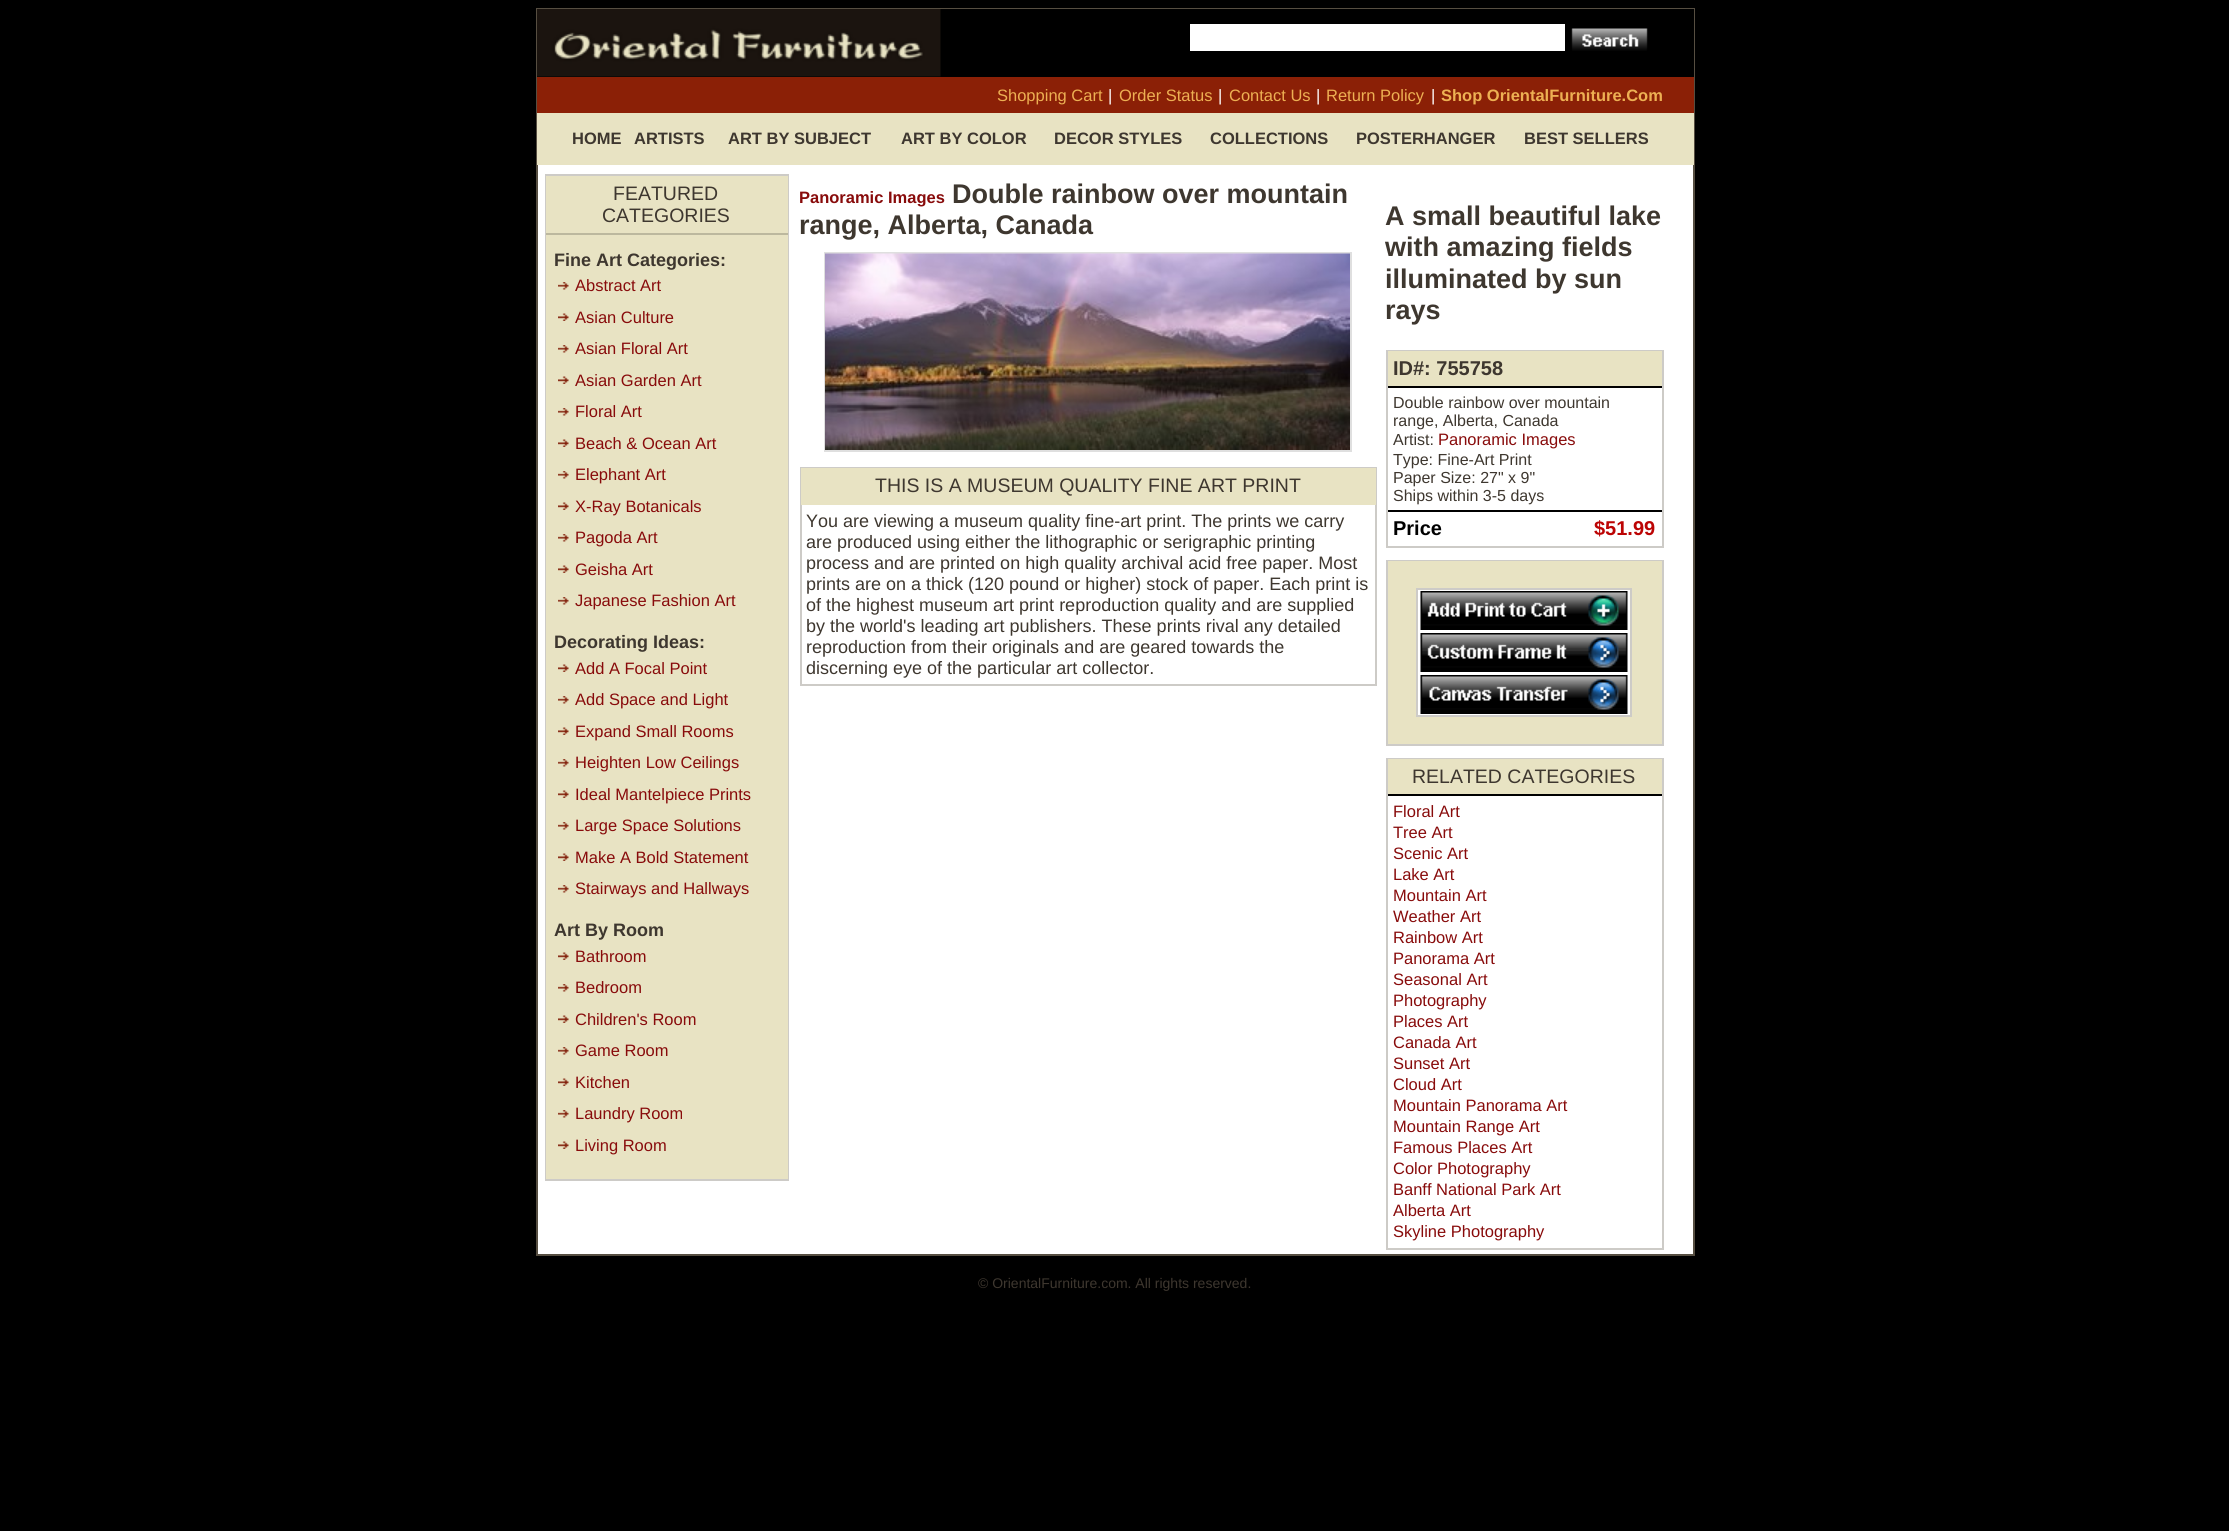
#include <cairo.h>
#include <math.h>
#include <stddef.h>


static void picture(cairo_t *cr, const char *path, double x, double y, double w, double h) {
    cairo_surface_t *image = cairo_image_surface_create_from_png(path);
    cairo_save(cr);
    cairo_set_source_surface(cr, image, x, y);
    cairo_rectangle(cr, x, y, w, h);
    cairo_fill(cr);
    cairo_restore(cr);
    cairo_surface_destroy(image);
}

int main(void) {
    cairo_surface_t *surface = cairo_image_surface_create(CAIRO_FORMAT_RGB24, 2229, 1531);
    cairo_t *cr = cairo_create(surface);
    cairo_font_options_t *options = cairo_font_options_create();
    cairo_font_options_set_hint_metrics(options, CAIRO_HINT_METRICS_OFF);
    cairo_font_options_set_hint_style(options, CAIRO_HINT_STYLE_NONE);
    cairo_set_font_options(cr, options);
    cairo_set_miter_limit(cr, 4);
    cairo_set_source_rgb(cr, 0, 0, 0);
    cairo_paint(cr);
    cairo_set_source_rgb(cr, 1, 1, 1);
    cairo_rectangle(cr, 538, 165, 1155, 1089);
    cairo_fill(cr);
    cairo_rectangle(cr, 537, 9, 1157, 1246);
    cairo_set_source_rgb(cr, 0.337, 0.306, 0.255);
    cairo_stroke(cr);
    cairo_set_source_rgb(cr, 0, 0, 0);
    cairo_rectangle(cr, 537, 9, 1157, 68);
    cairo_fill(cr);
    picture(cr, "img1.png", 537, 9, 404, 68);
    cairo_set_source_rgb(cr, 1, 1, 1);
    cairo_rectangle(cr, 1190, 24, 375, 27);
    cairo_fill(cr);
    picture(cr, "img2.png", 1571, 28, 77, 23);
    cairo_set_source_rgb(cr, 0.545, 0.125, 0.024);
    cairo_rectangle(cr, 537, 77, 1157, 36);
    cairo_fill(cr);
    cairo_select_font_face(cr, "Liberation Sans", CAIRO_FONT_SLANT_NORMAL, CAIRO_FONT_WEIGHT_NORMAL);
    cairo_set_font_size(cr, 16.5);
    cairo_set_source_rgb(cr, 0.929, 0.69, 0.325);
    cairo_move_to(cr, 997, 101);
    cairo_show_text(cr, "Shopping Cart");
    cairo_set_source_rgb(cr, 1, 1, 1);
    cairo_move_to(cr, 1108, 101);
    cairo_show_text(cr, "|");
    cairo_set_source_rgb(cr, 0.929, 0.69, 0.325);
    cairo_move_to(cr, 1119, 101);
    cairo_show_text(cr, "Order Status");
    cairo_set_source_rgb(cr, 1, 1, 1);
    cairo_move_to(cr, 1218, 101);
    cairo_show_text(cr, "|");
    cairo_set_source_rgb(cr, 0.929, 0.69, 0.325);
    cairo_move_to(cr, 1229, 101);
    cairo_show_text(cr, "Contact Us");
    cairo_set_source_rgb(cr, 1, 1, 1);
    cairo_move_to(cr, 1316, 101);
    cairo_show_text(cr, "|");
    cairo_set_source_rgb(cr, 0.929, 0.69, 0.325);
    cairo_move_to(cr, 1326, 101);
    cairo_show_text(cr, "Return Policy");
    cairo_set_source_rgb(cr, 1, 1, 1);
    cairo_move_to(cr, 1431, 101);
    cairo_show_text(cr, "|");
    cairo_select_font_face(cr, "Liberation Sans", CAIRO_FONT_SLANT_NORMAL, CAIRO_FONT_WEIGHT_BOLD);
    cairo_set_source_rgb(cr, 0.929, 0.69, 0.325);
    cairo_move_to(cr, 1441, 101);
    cairo_show_text(cr, "Shop OrientalFurniture.Com");
    cairo_set_source_rgb(cr, 0.91, 0.89, 0.765);
    cairo_rectangle(cr, 537, 113, 1157, 52);
    cairo_fill(cr);
    cairo_set_source_rgb(cr, 0.243, 0.216, 0.184);
    cairo_move_to(cr, 572, 144);
    cairo_show_text(cr, "HOME");
    cairo_move_to(cr, 634, 144);
    cairo_show_text(cr, "ARTISTS");
    cairo_move_to(cr, 728, 144);
    cairo_show_text(cr, "ART BY SUBJECT");
    cairo_move_to(cr, 901, 144);
    cairo_show_text(cr, "ART BY COLOR");
    cairo_move_to(cr, 1054, 144);
    cairo_show_text(cr, "DECOR STYLES");
    cairo_move_to(cr, 1210, 144);
    cairo_show_text(cr, "COLLECTIONS");
    cairo_move_to(cr, 1356, 144);
    cairo_show_text(cr, "POSTERHANGER");
    cairo_move_to(cr, 1524, 144);
    cairo_show_text(cr, "BEST SELLERS");
    cairo_rectangle(cr, 546, 175, 242, 1005);
    cairo_set_source_rgb(cr, 0.804, 0.796, 0.78);
    cairo_stroke(cr);
    cairo_set_source_rgb(cr, 0.91, 0.89, 0.765);
    cairo_rectangle(cr, 546, 176, 242, 57);
    cairo_fill(cr);
    cairo_select_font_face(cr, "Liberation Sans", CAIRO_FONT_SLANT_NORMAL, CAIRO_FONT_WEIGHT_NORMAL);
    cairo_set_font_size(cr, 19.5);
    cairo_set_source_rgb(cr, 0.243, 0.216, 0.184);
    cairo_move_to(cr, 613, 200);
    cairo_show_text(cr, "FEATURED");
    cairo_move_to(cr, 602, 222);
    cairo_show_text(cr, "CATEGORIES");
    cairo_set_source_rgb(cr, 0.91, 0.89, 0.765);
    cairo_rectangle(cr, 546, 235, 242, 944);
    cairo_fill(cr);
    cairo_set_source_rgb(cr, 0.737, 0.722, 0.62);
    cairo_rectangle(cr, 546, 233, 242, 2);
    cairo_fill(cr);
    cairo_select_font_face(cr, "Liberation Sans", CAIRO_FONT_SLANT_NORMAL, CAIRO_FONT_WEIGHT_BOLD);
    cairo_set_font_size(cr, 18);
    cairo_set_source_rgb(cr, 0.243, 0.216, 0.184);
    cairo_move_to(cr, 554, 266);
    cairo_show_text(cr, "Fine Art Categories:");
    picture(cr, "img3.png", 558, 282, 11, 8);
    cairo_select_font_face(cr, "Liberation Sans", CAIRO_FONT_SLANT_NORMAL, CAIRO_FONT_WEIGHT_NORMAL);
    cairo_set_font_size(cr, 16.5);
    cairo_set_source_rgb(cr, 0.533, 0.043, 0.043);
    cairo_move_to(cr, 575, 291);
    cairo_show_text(cr, "Abstract Art");
    picture(cr, "img4.png", 558, 313, 11, 8);
    cairo_move_to(cr, 575, 323);
    cairo_show_text(cr, "Asian Culture");
    picture(cr, "img3.png", 558, 345, 11, 8);
    cairo_move_to(cr, 575, 354);
    cairo_show_text(cr, "Asian Floral Art");
    picture(cr, "img4.png", 558, 376, 11, 8);
    cairo_move_to(cr, 575, 386);
    cairo_show_text(cr, "Asian Garden Art");
    picture(cr, "img3.png", 558, 408, 11, 8);
    cairo_move_to(cr, 575, 417);
    cairo_show_text(cr, "Floral Art");
    picture(cr, "img4.png", 558, 439, 11, 8);
    cairo_move_to(cr, 575, 449);
    cairo_show_text(cr, "Beach & Ocean Art");
    picture(cr, "img3.png", 558, 471, 11, 8);
    cairo_move_to(cr, 575, 480);
    cairo_show_text(cr, "Elephant Art");
    picture(cr, "img4.png", 558, 502, 11, 8);
    cairo_move_to(cr, 575, 512);
    cairo_show_text(cr, "X-Ray Botanicals");
    picture(cr, "img3.png", 558, 534, 11, 8);
    cairo_move_to(cr, 575, 543);
    cairo_show_text(cr, "Pagoda Art");
    picture(cr, "img4.png", 558, 565, 11, 8);
    cairo_move_to(cr, 575, 575);
    cairo_show_text(cr, "Geisha Art");
    picture(cr, "img3.png", 558, 597, 11, 8);
    cairo_move_to(cr, 575, 606);
    cairo_show_text(cr, "Japanese Fashion Art");
    cairo_select_font_face(cr, "Liberation Sans", CAIRO_FONT_SLANT_NORMAL, CAIRO_FONT_WEIGHT_BOLD);
    cairo_set_font_size(cr, 18);
    cairo_set_source_rgb(cr, 0.243, 0.216, 0.184);
    cairo_move_to(cr, 554, 648);
    cairo_show_text(cr, "Decorating Ideas:");
    picture(cr, "img4.png", 558, 664, 11, 8);
    cairo_select_font_face(cr, "Liberation Sans", CAIRO_FONT_SLANT_NORMAL, CAIRO_FONT_WEIGHT_NORMAL);
    cairo_set_font_size(cr, 16.5);
    cairo_set_source_rgb(cr, 0.533, 0.043, 0.043);
    cairo_move_to(cr, 575, 674);
    cairo_show_text(cr, "Add A Focal Point");
    picture(cr, "img3.png", 558, 696, 11, 8);
    cairo_move_to(cr, 575, 705);
    cairo_show_text(cr, "Add Space and Light");
    picture(cr, "img4.png", 558, 727, 11, 8);
    cairo_move_to(cr, 575, 737);
    cairo_show_text(cr, "Expand Small Rooms");
    picture(cr, "img3.png", 558, 759, 11, 8);
    cairo_move_to(cr, 575, 768);
    cairo_show_text(cr, "Heighten Low Ceilings");
    picture(cr, "img4.png", 558, 790, 11, 8);
    cairo_move_to(cr, 575, 800);
    cairo_show_text(cr, "Ideal Mantelpiece Prints");
    picture(cr, "img3.png", 558, 822, 11, 8);
    cairo_move_to(cr, 575, 831);
    cairo_show_text(cr, "Large Space Solutions");
    picture(cr, "img4.png", 558, 853, 11, 8);
    cairo_move_to(cr, 575, 863);
    cairo_show_text(cr, "Make A Bold Statement");
    picture(cr, "img3.png", 558, 885, 11, 8);
    cairo_move_to(cr, 575, 894);
    cairo_show_text(cr, "Stairways and Hallways");
    cairo_select_font_face(cr, "Liberation Sans", CAIRO_FONT_SLANT_NORMAL, CAIRO_FONT_WEIGHT_BOLD);
    cairo_set_font_size(cr, 18);
    cairo_set_source_rgb(cr, 0.243, 0.216, 0.184);
    cairo_move_to(cr, 554, 936);
    cairo_show_text(cr, "Art By Room");
    picture(cr, "img4.png", 558, 952, 11, 8);
    cairo_select_font_face(cr, "Liberation Sans", CAIRO_FONT_SLANT_NORMAL, CAIRO_FONT_WEIGHT_NORMAL);
    cairo_set_font_size(cr, 16.5);
    cairo_set_source_rgb(cr, 0.533, 0.043, 0.043);
    cairo_move_to(cr, 575, 962);
    cairo_show_text(cr, "Bathroom");
    picture(cr, "img3.png", 558, 984, 11, 8);
    cairo_move_to(cr, 575, 993);
    cairo_show_text(cr, "Bedroom");
    picture(cr, "img4.png", 558, 1015, 11, 8);
    cairo_move_to(cr, 575, 1025);
    cairo_show_text(cr, "Children's Room");
    picture(cr, "img3.png", 558, 1047, 11, 8);
    cairo_move_to(cr, 575, 1056);
    cairo_show_text(cr, "Game Room");
    picture(cr, "img4.png", 558, 1078, 11, 8);
    cairo_move_to(cr, 575, 1088);
    cairo_show_text(cr, "Kitchen");
    picture(cr, "img3.png", 558, 1110, 11, 8);
    cairo_move_to(cr, 575, 1119);
    cairo_show_text(cr, "Laundry Room");
    picture(cr, "img4.png", 558, 1141, 11, 8);
    cairo_move_to(cr, 575, 1151);
    cairo_show_text(cr, "Living Room");
    cairo_select_font_face(cr, "Liberation Sans", CAIRO_FONT_SLANT_NORMAL, CAIRO_FONT_WEIGHT_BOLD);
    cairo_move_to(cr, 799, 203);
    cairo_show_text(cr, "Panoramic Images");
    cairo_set_font_size(cr, 27);
    cairo_set_source_rgb(cr, 0.243, 0.216, 0.184);
    cairo_move_to(cr, 952, 203);
    cairo_show_text(cr, "Double rainbow over mountain");
    cairo_move_to(cr, 799, 234);
    cairo_show_text(cr, "range, Alberta, Canada");
    cairo_rectangle(cr, 825, 253, 526, 198);
    cairo_set_source_rgb(cr, 0.875, 0.875, 0.875);
    cairo_stroke(cr);
    picture(cr, "img5.png", 825, 253, 525, 197);
    cairo_rectangle(cr, 801, 468, 575, 217);
    cairo_set_source_rgb(cr, 0.804, 0.796, 0.78);
    cairo_stroke(cr);
    cairo_set_source_rgb(cr, 0.91, 0.89, 0.765);
    cairo_rectangle(cr, 801, 468, 575, 37);
    cairo_fill(cr);
    cairo_select_font_face(cr, "Liberation Sans", CAIRO_FONT_SLANT_NORMAL, CAIRO_FONT_WEIGHT_NORMAL);
    cairo_set_font_size(cr, 19.5);
    cairo_set_source_rgb(cr, 0.243, 0.216, 0.184);
    cairo_move_to(cr, 875, 492);
    cairo_show_text(cr, "THIS IS A MUSEUM QUALITY FINE ART PRINT");
    cairo_set_font_size(cr, 18);
    cairo_move_to(cr, 806, 527);
    cairo_show_text(cr, "You are viewing a museum quality fine-art print. The prints we carry");
    cairo_move_to(cr, 806, 548);
    cairo_show_text(cr, "are produced using either the lithographic or serigraphic printing");
    cairo_move_to(cr, 806, 569);
    cairo_show_text(cr, "process and are printed on high quality archival acid free paper. Most");
    cairo_move_to(cr, 806, 590);
    cairo_show_text(cr, "prints are on a thick (120 pound or higher) stock of paper. Each print is");
    cairo_move_to(cr, 806, 611);
    cairo_show_text(cr, "of the highest museum art print reproduction quality and are supplied");
    cairo_move_to(cr, 806, 632);
    cairo_show_text(cr, "by the world's leading art publishers. These prints rival any detailed");
    cairo_move_to(cr, 806, 653);
    cairo_show_text(cr, "reproduction from their originals and are geared towards the");
    cairo_move_to(cr, 806, 674);
    cairo_show_text(cr, "discerning eye of the particular art collector.");
    cairo_select_font_face(cr, "Liberation Sans", CAIRO_FONT_SLANT_NORMAL, CAIRO_FONT_WEIGHT_BOLD);
    cairo_set_font_size(cr, 27);
    cairo_move_to(cr, 1385, 225);
    cairo_show_text(cr, "A small beautiful lake");
    cairo_move_to(cr, 1385, 256);
    cairo_show_text(cr, "with amazing fields");
    cairo_move_to(cr, 1385, 288);
    cairo_show_text(cr, "illuminated by sun");
    cairo_move_to(cr, 1385, 319);
    cairo_show_text(cr, "rays");
    cairo_rectangle(cr, 1387, 351, 276, 196);
    cairo_set_source_rgb(cr, 0.804, 0.796, 0.78);
    cairo_stroke(cr);
    cairo_set_source_rgb(cr, 0.91, 0.89, 0.765);
    cairo_rectangle(cr, 1388, 351, 274, 35);
    cairo_fill(cr);
    cairo_set_font_size(cr, 20);
    cairo_set_source_rgb(cr, 0.243, 0.216, 0.184);
    cairo_move_to(cr, 1393, 375);
    cairo_show_text(cr, "ID#: 755758");
    cairo_set_source_rgb(cr, 0, 0, 0);
    cairo_rectangle(cr, 1388, 386, 274, 2);
    cairo_fill(cr);
    cairo_select_font_face(cr, "Liberation Sans", CAIRO_FONT_SLANT_NORMAL, CAIRO_FONT_WEIGHT_NORMAL);
    cairo_set_font_size(cr, 16);
    cairo_set_source_rgb(cr, 0.243, 0.216, 0.184);
    cairo_move_to(cr, 1393, 408);
    cairo_show_text(cr, "Double rainbow over mountain");
    cairo_move_to(cr, 1393, 426);
    cairo_show_text(cr, "range, Alberta, Canada");
    cairo_move_to(cr, 1393, 445);
    cairo_show_text(cr, "Artist:");
    cairo_set_font_size(cr, 16.5);
    cairo_set_source_rgb(cr, 0.533, 0.043, 0.043);
    cairo_move_to(cr, 1438, 445);
    cairo_show_text(cr, "Panoramic Images");
    cairo_set_font_size(cr, 16);
    cairo_set_source_rgb(cr, 0.243, 0.216, 0.184);
    cairo_move_to(cr, 1393, 465);
    cairo_show_text(cr, "Type: Fine-Art Print");
    cairo_move_to(cr, 1393, 483);
    cairo_show_text(cr, "Paper Size: 27\" x 9\"");
    cairo_move_to(cr, 1393, 501);
    cairo_show_text(cr, "Ships within 3-5 days");
    cairo_set_source_rgb(cr, 0, 0, 0);
    cairo_rectangle(cr, 1388, 510, 274, 2);
    cairo_fill(cr);
    cairo_select_font_face(cr, "Liberation Sans", CAIRO_FONT_SLANT_NORMAL, CAIRO_FONT_WEIGHT_BOLD);
    cairo_set_font_size(cr, 20);
    cairo_move_to(cr, 1393, 535);
    cairo_show_text(cr, "Price");
    cairo_set_source_rgb(cr, 0.737, 0.016, 0.016);
    cairo_move_to(cr, 1594, 535);
    cairo_show_text(cr, "$51.99");
    cairo_rectangle(cr, 1387, 561, 276, 184);
    cairo_set_source_rgb(cr, 0.804, 0.796, 0.78);
    cairo_stroke(cr);
    cairo_set_source_rgb(cr, 0.91, 0.89, 0.765);
    cairo_rectangle(cr, 1388, 561, 274, 183);
    cairo_fill(cr);
    cairo_set_source_rgb(cr, 1, 1, 1);
    cairo_rectangle(cr, 1417, 589, 214, 127);
    cairo_fill_preserve(cr);
    cairo_set_source_rgb(cr, 0.804, 0.796, 0.78);
    cairo_stroke(cr);
    picture(cr, "img6.png", 1420, 591, 208, 39);
    picture(cr, "img7.png", 1420, 633, 208, 39);
    picture(cr, "img8.png", 1420, 675, 208, 39);
    cairo_rectangle(cr, 1387, 759, 276, 490);
    cairo_stroke(cr);
    cairo_set_source_rgb(cr, 0.91, 0.89, 0.765);
    cairo_rectangle(cr, 1388, 759, 274, 35);
    cairo_fill(cr);
    cairo_select_font_face(cr, "Liberation Sans", CAIRO_FONT_SLANT_NORMAL, CAIRO_FONT_WEIGHT_NORMAL);
    cairo_set_font_size(cr, 19.5);
    cairo_set_source_rgb(cr, 0.243, 0.216, 0.184);
    cairo_move_to(cr, 1412, 783);
    cairo_show_text(cr, "RELATED CATEGORIES");
    cairo_set_source_rgb(cr, 0, 0, 0);
    cairo_rectangle(cr, 1388, 794, 274, 2);
    cairo_fill(cr);
    cairo_set_font_size(cr, 16.5);
    cairo_set_source_rgb(cr, 0.533, 0.043, 0.043);
    cairo_move_to(cr, 1393, 817);
    cairo_show_text(cr, "Floral Art");
    cairo_move_to(cr, 1393, 838);
    cairo_show_text(cr, "Tree Art");
    cairo_move_to(cr, 1393, 859);
    cairo_show_text(cr, "Scenic Art");
    cairo_move_to(cr, 1393, 880);
    cairo_show_text(cr, "Lake Art");
    cairo_move_to(cr, 1393, 901);
    cairo_show_text(cr, "Mountain Art");
    cairo_move_to(cr, 1393, 922);
    cairo_show_text(cr, "Weather Art");
    cairo_move_to(cr, 1393, 943);
    cairo_show_text(cr, "Rainbow Art");
    cairo_move_to(cr, 1393, 964);
    cairo_show_text(cr, "Panorama Art");
    cairo_move_to(cr, 1393, 985);
    cairo_show_text(cr, "Seasonal Art");
    cairo_move_to(cr, 1393, 1006);
    cairo_show_text(cr, "Photography");
    cairo_move_to(cr, 1393, 1027);
    cairo_show_text(cr, "Places Art");
    cairo_move_to(cr, 1393, 1048);
    cairo_show_text(cr, "Canada Art");
    cairo_move_to(cr, 1393, 1069);
    cairo_show_text(cr, "Sunset Art");
    cairo_move_to(cr, 1393, 1090);
    cairo_show_text(cr, "Cloud Art");
    cairo_move_to(cr, 1393, 1111);
    cairo_show_text(cr, "Mountain Panorama Art");
    cairo_move_to(cr, 1393, 1132);
    cairo_show_text(cr, "Mountain Range Art");
    cairo_move_to(cr, 1393, 1153);
    cairo_show_text(cr, "Famous Places Art");
    cairo_move_to(cr, 1393, 1174);
    cairo_show_text(cr, "Color Photography");
    cairo_move_to(cr, 1393, 1195);
    cairo_show_text(cr, "Banff National Park Art");
    cairo_move_to(cr, 1393, 1216);
    cairo_show_text(cr, "Alberta Art");
    cairo_move_to(cr, 1393, 1237);
    cairo_show_text(cr, "Skyline Photography");
    cairo_set_font_size(cr, 14);
    cairo_set_source_rgb(cr, 0.243, 0.216, 0.184);
    cairo_move_to(cr, 978, 1288);
    cairo_show_text(cr, "© OrientalFurniture.com. All rights reserved.");
    cairo_surface_write_to_png(surface, "page.png");
    cairo_font_options_destroy(options);
    cairo_destroy(cr);
    cairo_surface_destroy(surface);
    return 0;
}
